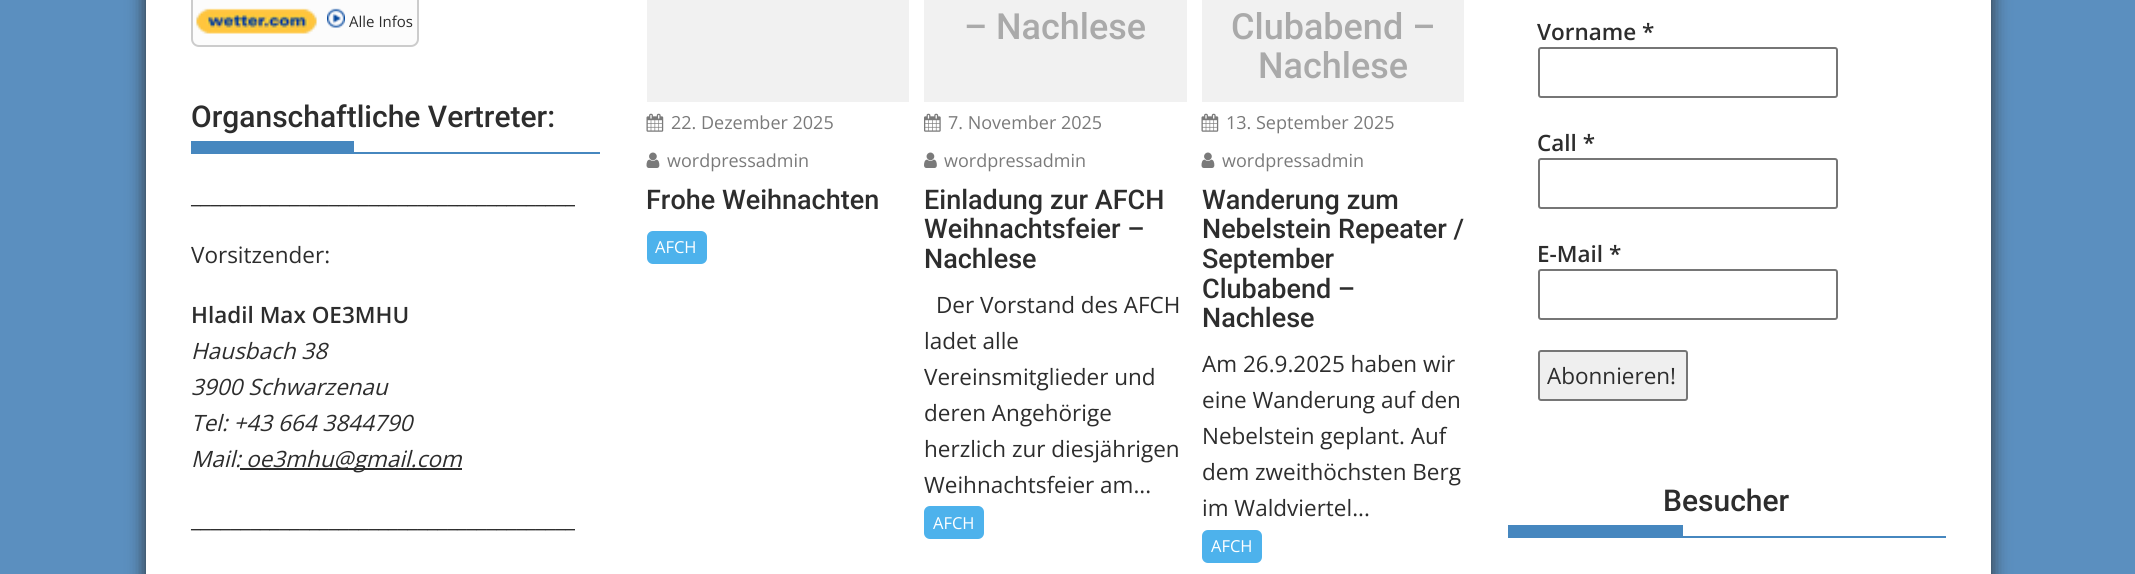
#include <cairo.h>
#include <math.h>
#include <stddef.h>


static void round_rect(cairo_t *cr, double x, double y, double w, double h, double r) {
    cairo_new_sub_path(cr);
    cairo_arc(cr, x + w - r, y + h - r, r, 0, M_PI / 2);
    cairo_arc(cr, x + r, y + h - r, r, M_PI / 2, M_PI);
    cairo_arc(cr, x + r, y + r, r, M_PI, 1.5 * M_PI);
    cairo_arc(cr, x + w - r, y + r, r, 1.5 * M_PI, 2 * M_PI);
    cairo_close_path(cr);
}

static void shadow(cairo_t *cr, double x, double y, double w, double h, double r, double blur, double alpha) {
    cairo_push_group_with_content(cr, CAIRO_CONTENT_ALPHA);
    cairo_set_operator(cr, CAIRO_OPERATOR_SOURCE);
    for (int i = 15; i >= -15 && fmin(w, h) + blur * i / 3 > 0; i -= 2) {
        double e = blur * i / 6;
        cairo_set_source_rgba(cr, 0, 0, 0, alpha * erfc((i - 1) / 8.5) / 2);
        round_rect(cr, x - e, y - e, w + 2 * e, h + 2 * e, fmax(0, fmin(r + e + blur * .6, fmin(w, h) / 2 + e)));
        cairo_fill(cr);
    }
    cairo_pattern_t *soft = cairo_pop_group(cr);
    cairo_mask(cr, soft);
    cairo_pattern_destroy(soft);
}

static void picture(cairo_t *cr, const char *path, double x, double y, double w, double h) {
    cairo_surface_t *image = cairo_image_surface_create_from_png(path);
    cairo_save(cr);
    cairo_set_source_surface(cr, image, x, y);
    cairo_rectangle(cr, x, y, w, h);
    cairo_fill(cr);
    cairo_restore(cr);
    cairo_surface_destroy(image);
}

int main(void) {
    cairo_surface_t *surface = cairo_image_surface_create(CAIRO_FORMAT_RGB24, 2135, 574);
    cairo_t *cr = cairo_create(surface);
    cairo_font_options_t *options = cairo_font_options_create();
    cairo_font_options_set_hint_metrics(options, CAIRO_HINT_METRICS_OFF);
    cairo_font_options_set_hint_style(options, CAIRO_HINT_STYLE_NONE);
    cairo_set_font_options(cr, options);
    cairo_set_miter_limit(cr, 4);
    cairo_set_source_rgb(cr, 0.357, 0.561, 0.749);
    cairo_paint(cr);
    cairo_set_source_rgb(cr, 0.176, 0.176, 0.176);
    shadow(cr, 146, -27, 1845, 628, 0, 9, 1);
    cairo_set_source_rgb(cr, 1, 1, 1);
    cairo_rectangle(cr, 146, 0, 1845, 574);
    cairo_fill(cr);
    cairo_set_source_rgb(cr, 0.988, 0.988, 0.988);
    round_rect(cr, 192, -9, 226, 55, 7);
    cairo_fill_preserve(cr);
    cairo_set_source_rgb(cr, 0.8, 0.8, 0.8);
    cairo_stroke(cr);
    picture(cr, "img1.png", 196, 8, 121, 26);
    picture(cr, "img2.png", 327, 8, 18, 20);
    cairo_select_font_face(cr, "Open Sans", CAIRO_FONT_SLANT_NORMAL, CAIRO_FONT_WEIGHT_NORMAL);
    cairo_set_font_size(cr, 15);
    cairo_set_source_rgb(cr, 0.176, 0.176, 0.176);
    cairo_move_to(cr, 349, 27);
    cairo_show_text(cr, "Alle Infos");
    cairo_set_source_rgb(cr, 0.275, 0.529, 0.749);
    cairo_rectangle(cr, 191, 152, 409, 2);
    cairo_fill(cr);
    cairo_select_font_face(cr, "Roboto Medium", CAIRO_FONT_SLANT_NORMAL, CAIRO_FONT_WEIGHT_NORMAL);
    cairo_set_font_size(cr, 30);
    cairo_set_source_rgb(cr, 0.176, 0.176, 0.176);
    cairo_move_to(cr, 191, 127);
    cairo_show_text(cr, "Organschaftliche Vertreter:");
    cairo_set_source_rgb(cr, 0.275, 0.529, 0.749);
    cairo_rectangle(cr, 191, 141, 163, 11);
    cairo_fill(cr);
    cairo_select_font_face(cr, "Open Sans", CAIRO_FONT_SLANT_NORMAL, CAIRO_FONT_WEIGHT_NORMAL);
    cairo_set_font_size(cr, 22.5);
    cairo_set_source_rgb(cr, 0.176, 0.176, 0.176);
    cairo_move_to(cr, 191, 203);
    cairo_show_text(cr, "_______________________________________");
    cairo_move_to(cr, 191, 263);
    cairo_show_text(cr, "Vorsitzender:");
    cairo_select_font_face(cr, "Open Sans SemiBold", CAIRO_FONT_SLANT_NORMAL, CAIRO_FONT_WEIGHT_NORMAL);
    cairo_move_to(cr, 191, 323);
    cairo_show_text(cr, "Hladil Max OE3MHU");
    cairo_select_font_face(cr, "Open Sans", CAIRO_FONT_SLANT_ITALIC, CAIRO_FONT_WEIGHT_NORMAL);
    cairo_move_to(cr, 191, 359);
    cairo_show_text(cr, "Hausbach 38");
    cairo_move_to(cr, 191, 395);
    cairo_show_text(cr, "3900 Schwarzenau");
    cairo_move_to(cr, 191, 431);
    cairo_show_text(cr, "Tel: +43 664 3844790");
    cairo_move_to(cr, 191, 467);
    cairo_show_text(cr, "Mail:");
    cairo_rectangle(cr, 240, 468, 222, 2);
    cairo_fill(cr);
    cairo_move_to(cr, 246, 467);
    cairo_show_text(cr, "oe3mhu@gmail.com");
    cairo_select_font_face(cr, "Open Sans", CAIRO_FONT_SLANT_NORMAL, CAIRO_FONT_WEIGHT_NORMAL);
    cairo_move_to(cr, 191, 527);
    cairo_show_text(cr, "_______________________________________");
    cairo_set_source_rgb(cr, 0.945, 0.945, 0.945);
    cairo_rectangle(cr, 647, 0, 262, 102);
    cairo_fill(cr);
    picture(cr, "img3.png", 646, 113, 18, 19);
    cairo_set_font_size(cr, 18);
    cairo_set_source_rgb(cr, 0.478, 0.478, 0.478);
    cairo_move_to(cr, 671, 129);
    cairo_show_text(cr, "22. Dezember 2025");
    picture(cr, "img4.png", 646, 152, 14, 16);
    cairo_move_to(cr, 667, 167);
    cairo_show_text(cr, "wordpressadmin");
    cairo_select_font_face(cr, "Roboto Medium", CAIRO_FONT_SLANT_NORMAL, CAIRO_FONT_WEIGHT_NORMAL);
    cairo_set_font_size(cr, 27);
    cairo_set_source_rgb(cr, 0.176, 0.176, 0.176);
    cairo_move_to(cr, 646, 209);
    cairo_show_text(cr, "Frohe Weihnachten");
    cairo_set_source_rgb(cr, 0.302, 0.698, 0.925);
    round_rect(cr, 647, 231, 60, 33, 6);
    cairo_fill(cr);
    cairo_select_font_face(cr, "Open Sans", CAIRO_FONT_SLANT_NORMAL, CAIRO_FONT_WEIGHT_NORMAL);
    cairo_set_font_size(cr, 16.5);
    cairo_set_source_rgb(cr, 1, 1, 1);
    cairo_move_to(cr, 655, 253);
    cairo_show_text(cr, "AFCH");
    cairo_set_source_rgb(cr, 0.945, 0.945, 0.945);
    cairo_rectangle(cr, 924, 0, 263, 102);
    cairo_fill(cr);
    cairo_select_font_face(cr, "Roboto Medium", CAIRO_FONT_SLANT_NORMAL, CAIRO_FONT_WEIGHT_NORMAL);
    cairo_set_font_size(cr, 36);
    cairo_set_source_rgb(cr, 0.667, 0.667, 0.667);
    cairo_move_to(cr, 964, 39);
    cairo_show_text(cr, "– Nachlese");
    picture(cr, "img5.png", 924, 113, 17, 19);
    cairo_select_font_face(cr, "Open Sans", CAIRO_FONT_SLANT_NORMAL, CAIRO_FONT_WEIGHT_NORMAL);
    cairo_set_font_size(cr, 18);
    cairo_set_source_rgb(cr, 0.478, 0.478, 0.478);
    cairo_move_to(cr, 948, 129);
    cairo_show_text(cr, "7. November 2025");
    picture(cr, "img6.png", 924, 152, 13, 16);
    cairo_move_to(cr, 944, 167);
    cairo_show_text(cr, "wordpressadmin");
    cairo_select_font_face(cr, "Roboto Medium", CAIRO_FONT_SLANT_NORMAL, CAIRO_FONT_WEIGHT_NORMAL);
    cairo_set_font_size(cr, 27);
    cairo_set_source_rgb(cr, 0.176, 0.176, 0.176);
    cairo_move_to(cr, 924, 209);
    cairo_show_text(cr, "Einladung zur AFCH");
    cairo_move_to(cr, 924, 238);
    cairo_show_text(cr, "Weihnachtsfeier –");
    cairo_move_to(cr, 924, 268);
    cairo_show_text(cr, "Nachlese");
    cairo_select_font_face(cr, "Open Sans", CAIRO_FONT_SLANT_NORMAL, CAIRO_FONT_WEIGHT_NORMAL);
    cairo_set_font_size(cr, 22.5);
    cairo_move_to(cr, 936, 313);
    cairo_show_text(cr, "Der Vorstand des AFCH");
    cairo_move_to(cr, 924, 349);
    cairo_show_text(cr, "ladet alle");
    cairo_move_to(cr, 924, 385);
    cairo_show_text(cr, "Vereinsmitglieder und");
    cairo_move_to(cr, 924, 421);
    cairo_show_text(cr, "deren Angehörige");
    cairo_move_to(cr, 924, 457);
    cairo_show_text(cr, "herzlich zur diesjährigen");
    cairo_move_to(cr, 924, 493);
    cairo_show_text(cr, "Weihnachtsfeier am...");
    cairo_set_source_rgb(cr, 0.302, 0.698, 0.925);
    round_rect(cr, 924, 506, 60, 33, 6);
    cairo_fill(cr);
    cairo_set_font_size(cr, 16.5);
    cairo_set_source_rgb(cr, 1, 1, 1);
    cairo_move_to(cr, 933, 529);
    cairo_show_text(cr, "AFCH");
    cairo_set_source_rgb(cr, 0.945, 0.945, 0.945);
    cairo_rectangle(cr, 1202, 0, 262, 102);
    cairo_fill(cr);
    cairo_select_font_face(cr, "Roboto Medium", CAIRO_FONT_SLANT_NORMAL, CAIRO_FONT_WEIGHT_NORMAL);
    cairo_set_font_size(cr, 36);
    cairo_set_source_rgb(cr, 0.667, 0.667, 0.667);
    cairo_move_to(cr, 1231, 39);
    cairo_show_text(cr, "Clubabend –");
    cairo_move_to(cr, 1258, 78);
    cairo_show_text(cr, "Nachlese");
    picture(cr, "img3.png", 1201, 113, 18, 19);
    cairo_select_font_face(cr, "Open Sans", CAIRO_FONT_SLANT_NORMAL, CAIRO_FONT_WEIGHT_NORMAL);
    cairo_set_font_size(cr, 18);
    cairo_set_source_rgb(cr, 0.478, 0.478, 0.478);
    cairo_move_to(cr, 1226, 129);
    cairo_show_text(cr, "13. September 2025");
    picture(cr, "img4.png", 1201, 152, 14, 16);
    cairo_move_to(cr, 1222, 167);
    cairo_show_text(cr, "wordpressadmin");
    cairo_select_font_face(cr, "Roboto Medium", CAIRO_FONT_SLANT_NORMAL, CAIRO_FONT_WEIGHT_NORMAL);
    cairo_set_font_size(cr, 27);
    cairo_set_source_rgb(cr, 0.176, 0.176, 0.176);
    cairo_move_to(cr, 1202, 209);
    cairo_show_text(cr, "Wanderung zum");
    cairo_move_to(cr, 1202, 238);
    cairo_show_text(cr, "Nebelstein Repeater /");
    cairo_move_to(cr, 1202, 268);
    cairo_show_text(cr, "September");
    cairo_move_to(cr, 1202, 298);
    cairo_show_text(cr, "Clubabend –");
    cairo_move_to(cr, 1202, 327);
    cairo_show_text(cr, "Nachlese");
    cairo_select_font_face(cr, "Open Sans", CAIRO_FONT_SLANT_NORMAL, CAIRO_FONT_WEIGHT_NORMAL);
    cairo_set_font_size(cr, 22.5);
    cairo_move_to(cr, 1202, 372);
    cairo_show_text(cr, "Am 26.9.2025 haben wir");
    cairo_move_to(cr, 1202, 408);
    cairo_show_text(cr, "eine Wanderung auf den");
    cairo_move_to(cr, 1202, 444);
    cairo_show_text(cr, "Nebelstein geplant. Auf");
    cairo_move_to(cr, 1202, 480);
    cairo_show_text(cr, "dem zweithöchsten Berg");
    cairo_move_to(cr, 1202, 516);
    cairo_show_text(cr, "im Waldviertel...");
    cairo_set_source_rgb(cr, 0.302, 0.698, 0.925);
    round_rect(cr, 1202, 530, 60, 33, 6);
    cairo_fill(cr);
    cairo_set_font_size(cr, 16.5);
    cairo_set_source_rgb(cr, 1, 1, 1);
    cairo_move_to(cr, 1211, 552);
    cairo_show_text(cr, "AFCH");
    cairo_select_font_face(cr, "Open Sans SemiBold", CAIRO_FONT_SLANT_NORMAL, CAIRO_FONT_WEIGHT_NORMAL);
    cairo_set_font_size(cr, 22.5);
    cairo_set_source_rgb(cr, 0.176, 0.176, 0.176);
    cairo_move_to(cr, 1537, 40);
    cairo_show_text(cr, "Vorname *");
    round_rect(cr, 1539, 48, 298, 49, 2);
    cairo_set_source_rgb(cr, 0.463, 0.463, 0.463);
    cairo_stroke(cr);
    cairo_set_source_rgb(cr, 0.176, 0.176, 0.176);
    cairo_move_to(cr, 1537, 151);
    cairo_show_text(cr, "Call *");
    round_rect(cr, 1539, 159, 298, 49, 2);
    cairo_set_source_rgb(cr, 0.463, 0.463, 0.463);
    cairo_stroke(cr);
    cairo_set_source_rgb(cr, 0.176, 0.176, 0.176);
    cairo_move_to(cr, 1537, 262);
    cairo_show_text(cr, "E-Mail *");
    round_rect(cr, 1539, 270, 298, 49, 2);
    cairo_set_source_rgb(cr, 0.463, 0.463, 0.463);
    cairo_stroke(cr);
    cairo_set_source_rgb(cr, 0.937, 0.937, 0.937);
    round_rect(cr, 1539, 351, 148, 49, 2);
    cairo_fill_preserve(cr);
    cairo_set_source_rgb(cr, 0.463, 0.463, 0.463);
    cairo_stroke(cr);
    cairo_select_font_face(cr, "Open Sans", CAIRO_FONT_SLANT_NORMAL, CAIRO_FONT_WEIGHT_NORMAL);
    cairo_set_source_rgb(cr, 0.176, 0.176, 0.176);
    cairo_move_to(cr, 1547, 384);
    cairo_show_text(cr, "Abonnieren!");
    cairo_set_source_rgb(cr, 0.275, 0.529, 0.749);
    cairo_rectangle(cr, 1508, 536, 438, 2);
    cairo_fill(cr);
    cairo_select_font_face(cr, "Roboto Medium", CAIRO_FONT_SLANT_NORMAL, CAIRO_FONT_WEIGHT_NORMAL);
    cairo_set_font_size(cr, 30);
    cairo_set_source_rgb(cr, 0.176, 0.176, 0.176);
    cairo_move_to(cr, 1663, 511);
    cairo_show_text(cr, "Besucher");
    cairo_set_source_rgb(cr, 0.275, 0.529, 0.749);
    cairo_rectangle(cr, 1508, 525, 175, 11);
    cairo_fill(cr);
    cairo_surface_write_to_png(surface, "page.png");
    cairo_font_options_destroy(options);
    cairo_destroy(cr);
    cairo_surface_destroy(surface);
    return 0;
}
